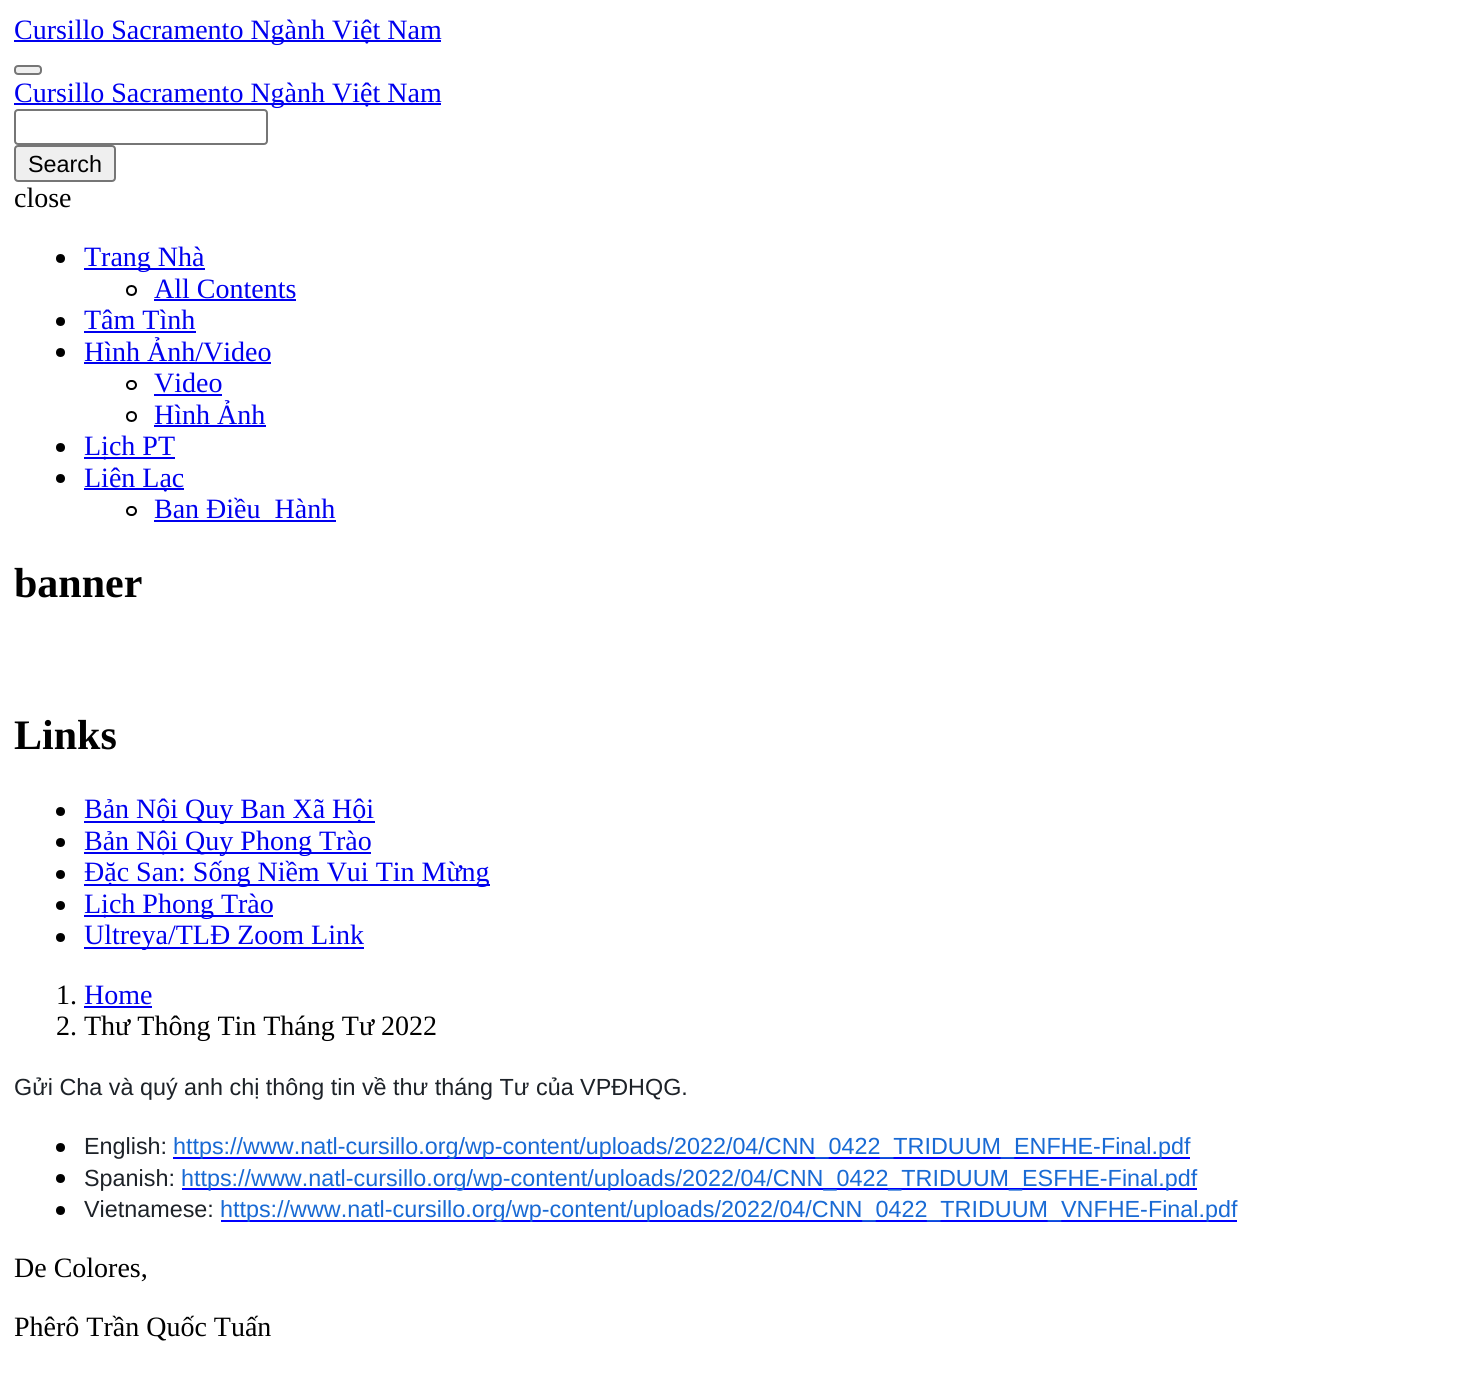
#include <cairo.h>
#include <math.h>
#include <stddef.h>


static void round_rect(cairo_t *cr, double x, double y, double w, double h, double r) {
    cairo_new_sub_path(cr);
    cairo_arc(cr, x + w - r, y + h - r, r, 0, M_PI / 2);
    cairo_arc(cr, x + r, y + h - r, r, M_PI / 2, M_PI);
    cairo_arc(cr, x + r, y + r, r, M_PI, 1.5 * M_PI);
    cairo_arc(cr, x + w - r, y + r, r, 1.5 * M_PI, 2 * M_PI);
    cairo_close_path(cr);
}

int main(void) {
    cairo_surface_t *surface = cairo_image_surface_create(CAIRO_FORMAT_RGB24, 1462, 1399);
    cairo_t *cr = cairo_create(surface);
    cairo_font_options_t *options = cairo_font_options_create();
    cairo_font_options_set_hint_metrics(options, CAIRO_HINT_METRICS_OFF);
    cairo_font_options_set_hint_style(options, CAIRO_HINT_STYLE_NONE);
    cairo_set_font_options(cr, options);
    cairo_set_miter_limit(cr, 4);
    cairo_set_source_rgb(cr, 1, 1, 1);
    cairo_paint(cr);
    cairo_set_source_rgb(cr, 0, 0, 0.933);
    cairo_rectangle(cr, 14, 40, 427, 2);
    cairo_fill(cr);
    cairo_select_font_face(cr, "Liberation Serif", CAIRO_FONT_SLANT_NORMAL, CAIRO_FONT_WEIGHT_NORMAL);
    cairo_set_font_size(cr, 28);
    cairo_move_to(cr, 14, 39);
    cairo_show_text(cr, "Cursillo Sacramento Ngành Việt Nam");
    cairo_set_source_rgb(cr, 0.937, 0.937, 0.937);
    round_rect(cr, 15, 66, 26, 8, 3);
    cairo_fill_preserve(cr);
    cairo_set_source_rgb(cr, 0.463, 0.463, 0.463);
    cairo_stroke(cr);
    cairo_set_source_rgb(cr, 0, 0, 0.933);
    cairo_rectangle(cr, 14, 103, 427, 2);
    cairo_fill(cr);
    cairo_move_to(cr, 14, 102);
    cairo_show_text(cr, "Cursillo Sacramento Ngành Việt Nam");
    round_rect(cr, 15, 110, 252, 34, 3);
    cairo_set_source_rgb(cr, 0.463, 0.463, 0.463);
    cairo_stroke(cr);
    cairo_set_source_rgb(cr, 0.937, 0.937, 0.937);
    round_rect(cr, 15, 146, 100, 35, 3);
    cairo_fill_preserve(cr);
    cairo_set_source_rgb(cr, 0.463, 0.463, 0.463);
    cairo_stroke(cr);
    cairo_select_font_face(cr, "Liberation Sans", CAIRO_FONT_SLANT_NORMAL, CAIRO_FONT_WEIGHT_NORMAL);
    cairo_set_font_size(cr, 23.35);
    cairo_set_source_rgb(cr, 0, 0, 0);
    cairo_move_to(cr, 28, 172);
    cairo_show_text(cr, "Search");
    cairo_select_font_face(cr, "Liberation Serif", CAIRO_FONT_SLANT_NORMAL, CAIRO_FONT_WEIGHT_NORMAL);
    cairo_set_font_size(cr, 28);
    cairo_move_to(cr, 14, 207);
    cairo_show_text(cr, "close");
    cairo_new_path(cr);
    cairo_arc(cr, 60.5, 258.5, 4.5, 0, 2 * M_PI);
    cairo_fill(cr);
    cairo_set_source_rgb(cr, 0, 0, 0.933);
    cairo_rectangle(cr, 84, 268, 121, 2);
    cairo_fill(cr);
    cairo_move_to(cr, 84, 266);
    cairo_show_text(cr, "Trang Nhà");
    cairo_new_path(cr);
    cairo_arc(cr, 131.5, 290.5, 4.5, 0, 2 * M_PI);
    cairo_set_source_rgb(cr, 0, 0, 0);
    cairo_stroke(cr);
    cairo_set_source_rgb(cr, 0, 0, 0.933);
    cairo_move_to(cr, 154, 298);
    cairo_show_text(cr, "All Contents");
    cairo_rectangle(cr, 154, 299, 142, 2);
    cairo_fill(cr);
    cairo_set_source_rgb(cr, 0, 0, 0);
    cairo_arc(cr, 60.5, 321.5, 4.5, 0, 2 * M_PI);
    cairo_fill(cr);
    cairo_set_source_rgb(cr, 0, 0, 0.933);
    cairo_move_to(cr, 84, 329);
    cairo_show_text(cr, "Tâm Tình");
    cairo_rectangle(cr, 84, 331, 112, 2);
    cairo_fill(cr);
    cairo_set_source_rgb(cr, 0, 0, 0);
    cairo_arc(cr, 60.5, 352.5, 4.5, 0, 2 * M_PI);
    cairo_fill(cr);
    cairo_set_source_rgb(cr, 0, 0, 0.933);
    cairo_move_to(cr, 84, 361);
    cairo_show_text(cr, "Hình Ảnh/Video");
    cairo_rectangle(cr, 84, 362, 187, 2);
    cairo_fill(cr);
    round_rect(cr, 127, 381, 9, 8, 4);
    cairo_set_source_rgb(cr, 0, 0, 0);
    cairo_stroke(cr);
    cairo_set_source_rgb(cr, 0, 0, 0.933);
    cairo_move_to(cr, 154, 392);
    cairo_show_text(cr, "Video");
    cairo_rectangle(cr, 154, 394, 68, 2);
    cairo_fill(cr);
    cairo_arc(cr, 131.5, 416.5, 4.5, 0, 2 * M_PI);
    cairo_set_source_rgb(cr, 0, 0, 0);
    cairo_stroke(cr);
    cairo_set_source_rgb(cr, 0, 0, 0.933);
    cairo_move_to(cr, 154, 424);
    cairo_show_text(cr, "Hình Ảnh");
    cairo_rectangle(cr, 154, 425, 112, 2);
    cairo_fill(cr);
    cairo_set_source_rgb(cr, 0, 0, 0);
    cairo_arc(cr, 60.5, 447.5, 4.5, 0, 2 * M_PI);
    cairo_fill(cr);
    cairo_set_source_rgb(cr, 0, 0, 0.933);
    cairo_rectangle(cr, 84, 457, 91, 2);
    cairo_fill(cr);
    cairo_move_to(cr, 84, 455);
    cairo_show_text(cr, "Lịch PT");
    cairo_set_source_rgb(cr, 0, 0, 0);
    cairo_new_path(cr);
    cairo_arc(cr, 60.5, 478.5, 4.5, 0, 2 * M_PI);
    cairo_fill(cr);
    cairo_set_source_rgb(cr, 0, 0, 0.933);
    cairo_rectangle(cr, 84, 488, 100, 2);
    cairo_fill(cr);
    cairo_move_to(cr, 84, 487);
    cairo_show_text(cr, "Liên Lạc");
    round_rect(cr, 127, 507, 9, 8, 4);
    cairo_set_source_rgb(cr, 0, 0, 0);
    cairo_stroke(cr);
    cairo_set_source_rgb(cr, 0, 0, 0.933);
    cairo_rectangle(cr, 154, 520, 182, 2);
    cairo_fill(cr);
    cairo_move_to(cr, 154, 518);
    cairo_show_text(cr, "Ban Điều_Hành");
    cairo_select_font_face(cr, "Liberation Serif", CAIRO_FONT_SLANT_NORMAL, CAIRO_FONT_WEIGHT_BOLD);
    cairo_set_font_size(cr, 42);
    cairo_set_source_rgb(cr, 0, 0, 0);
    cairo_move_to(cr, 14, 597);
    cairo_show_text(cr, "banner");
    cairo_move_to(cr, 14, 749);
    cairo_show_text(cr, "Links");
    cairo_new_path(cr);
    cairo_arc(cr, 60.5, 811.5, 4.5, 0, 2 * M_PI);
    cairo_fill(cr);
    cairo_set_source_rgb(cr, 0, 0, 0.933);
    cairo_rectangle(cr, 84, 821, 291, 2);
    cairo_fill(cr);
    cairo_select_font_face(cr, "Liberation Serif", CAIRO_FONT_SLANT_NORMAL, CAIRO_FONT_WEIGHT_NORMAL);
    cairo_set_font_size(cr, 28);
    cairo_move_to(cr, 84, 818);
    cairo_show_text(cr, "Bản Nội Quy Ban Xã Hội");
    cairo_set_source_rgb(cr, 0, 0, 0);
    cairo_new_path(cr);
    cairo_arc(cr, 60.5, 842.5, 4.5, 0, 2 * M_PI);
    cairo_fill(cr);
    cairo_set_source_rgb(cr, 0, 0, 0.933);
    cairo_rectangle(cr, 84, 852, 287, 2);
    cairo_fill(cr);
    cairo_move_to(cr, 84, 850);
    cairo_show_text(cr, "Bản Nội Quy Phong Trào");
    cairo_set_source_rgb(cr, 0, 0, 0);
    cairo_new_path(cr);
    cairo_arc(cr, 60.5, 874.5, 4.5, 0, 2 * M_PI);
    cairo_fill(cr);
    cairo_set_source_rgb(cr, 0, 0, 0.933);
    cairo_rectangle(cr, 84, 884, 406, 2);
    cairo_fill(cr);
    cairo_move_to(cr, 84, 881);
    cairo_show_text(cr, "Đặc San: Sống Niềm Vui Tin Mừng");
    cairo_set_source_rgb(cr, 0, 0, 0);
    cairo_new_path(cr);
    cairo_arc(cr, 60.5, 905.5, 4.5, 0, 2 * M_PI);
    cairo_fill(cr);
    cairo_set_source_rgb(cr, 0, 0, 0.933);
    cairo_rectangle(cr, 84, 915, 189, 2);
    cairo_fill(cr);
    cairo_move_to(cr, 84, 913);
    cairo_show_text(cr, "Lịch Phong Trào");
    cairo_set_source_rgb(cr, 0, 0, 0);
    cairo_new_path(cr);
    cairo_arc(cr, 60.5, 937.5, 4.5, 0, 2 * M_PI);
    cairo_fill(cr);
    cairo_set_source_rgb(cr, 0, 0, 0.933);
    cairo_rectangle(cr, 84, 947, 280, 2);
    cairo_fill(cr);
    cairo_move_to(cr, 84, 944);
    cairo_show_text(cr, "Ultreya/TLĐ Zoom Link");
    cairo_set_source_rgb(cr, 0, 0, 0);
    cairo_move_to(cr, 56, 1004);
    cairo_show_text(cr, "1.");
    cairo_set_source_rgb(cr, 0, 0, 0.933);
    cairo_move_to(cr, 84, 1004);
    cairo_show_text(cr, "Home");
    cairo_rectangle(cr, 84, 1006, 68, 2);
    cairo_fill(cr);
    cairo_set_source_rgb(cr, 0, 0, 0);
    cairo_move_to(cr, 56, 1035);
    cairo_show_text(cr, "2. Thư Thông Tin Tháng Tư 2022");
    cairo_select_font_face(cr, "Liberation Sans", CAIRO_FONT_SLANT_NORMAL, CAIRO_FONT_WEIGHT_NORMAL);
    cairo_set_font_size(cr, 23.35);
    cairo_set_source_rgb(cr, 0.114, 0.133, 0.157);
    cairo_move_to(cr, 14, 1095);
    cairo_show_text(cr, "Gửi Cha và quý anh chị thông tin về thư tháng Tư của VPĐHQG.");
    cairo_set_source_rgb(cr, 0, 0, 0);
    cairo_new_path(cr);
    cairo_arc(cr, 60.5, 1147.5, 4.5, 0, 2 * M_PI);
    cairo_fill(cr);
    cairo_set_source_rgb(cr, 0.114, 0.133, 0.157);
    cairo_move_to(cr, 84, 1154);
    cairo_show_text(cr, "English:");
    cairo_set_source_rgb(cr, 0, 0, 1);
    cairo_rectangle(cr, 173, 1157, 1017, 2);
    cairo_fill(cr);
    cairo_set_source_rgb(cr, 0.098, 0.416, 0.831);
    cairo_move_to(cr, 173, 1154);
    cairo_show_text(cr, "https://www.natl-cursillo.org/wp-content/uploads/2022/04/CNN_0422_TRIDUUM_ENFHE-Final.pdf");
    cairo_set_source_rgb(cr, 0, 0, 0);
    cairo_new_path(cr);
    cairo_arc(cr, 60.5, 1178.5, 4.5, 0, 2 * M_PI);
    cairo_fill(cr);
    cairo_set_source_rgb(cr, 0.114, 0.133, 0.157);
    cairo_move_to(cr, 84, 1186);
    cairo_show_text(cr, "Spanish:");
    cairo_set_source_rgb(cr, 0, 0, 1);
    cairo_rectangle(cr, 182, 1188, 1015, 2);
    cairo_fill(cr);
    cairo_set_source_rgb(cr, 0.098, 0.416, 0.831);
    cairo_move_to(cr, 181, 1186);
    cairo_show_text(cr, "https://www.natl-cursillo.org/wp-content/uploads/2022/04/CNN_0422_TRIDUUM_ESFHE-Final.pdf");
    cairo_set_source_rgb(cr, 0, 0, 0);
    cairo_new_path(cr);
    cairo_arc(cr, 60.5, 1210.5, 4.5, 0, 2 * M_PI);
    cairo_fill(cr);
    cairo_set_source_rgb(cr, 0.114, 0.133, 0.157);
    cairo_move_to(cr, 84, 1217);
    cairo_show_text(cr, "Vietnamese:");
    cairo_set_source_rgb(cr, 0, 0, 1);
    cairo_rectangle(cr, 221, 1220, 1016, 2);
    cairo_fill(cr);
    cairo_set_source_rgb(cr, 0.098, 0.416, 0.831);
    cairo_move_to(cr, 220, 1217);
    cairo_show_text(cr, "https://www.natl-cursillo.org/wp-content/uploads/2022/04/CNN_0422_TRIDUUM_VNFHE-Final.pdf");
    cairo_select_font_face(cr, "Liberation Serif", CAIRO_FONT_SLANT_NORMAL, CAIRO_FONT_WEIGHT_NORMAL);
    cairo_set_font_size(cr, 28);
    cairo_set_source_rgb(cr, 0, 0, 0);
    cairo_move_to(cr, 14, 1277);
    cairo_show_text(cr, "De Colores,");
    cairo_move_to(cr, 14, 1336);
    cairo_show_text(cr, "Phêrô Trần Quốc Tuấn");
    cairo_surface_write_to_png(surface, "page.png");
    cairo_font_options_destroy(options);
    cairo_destroy(cr);
    cairo_surface_destroy(surface);
    return 0;
}
